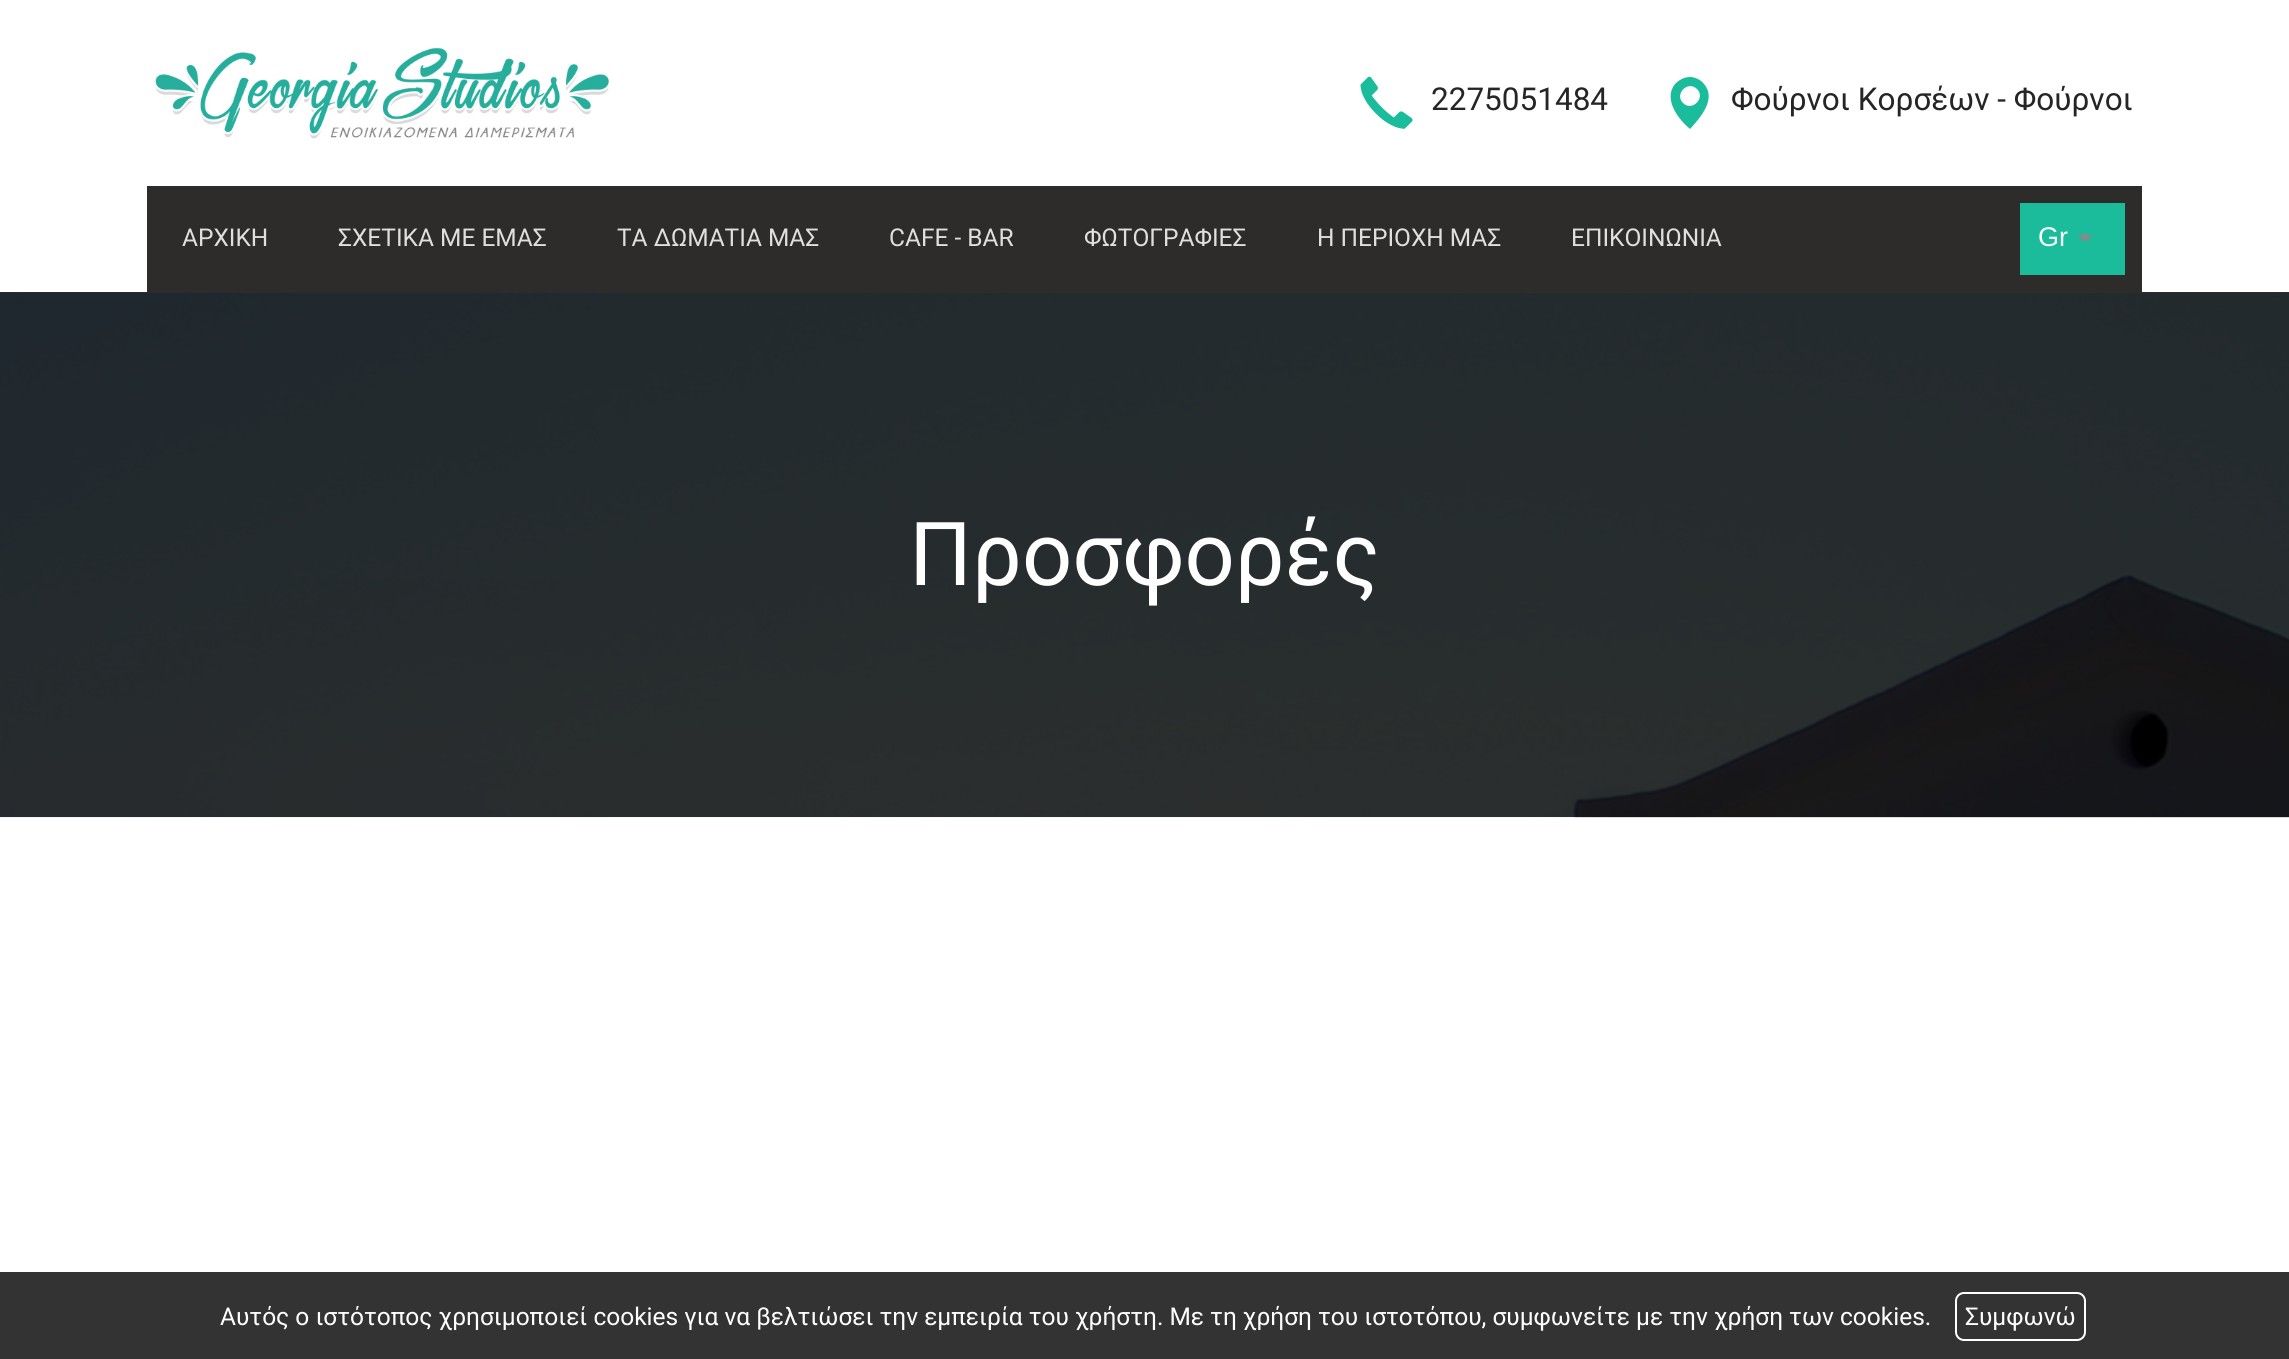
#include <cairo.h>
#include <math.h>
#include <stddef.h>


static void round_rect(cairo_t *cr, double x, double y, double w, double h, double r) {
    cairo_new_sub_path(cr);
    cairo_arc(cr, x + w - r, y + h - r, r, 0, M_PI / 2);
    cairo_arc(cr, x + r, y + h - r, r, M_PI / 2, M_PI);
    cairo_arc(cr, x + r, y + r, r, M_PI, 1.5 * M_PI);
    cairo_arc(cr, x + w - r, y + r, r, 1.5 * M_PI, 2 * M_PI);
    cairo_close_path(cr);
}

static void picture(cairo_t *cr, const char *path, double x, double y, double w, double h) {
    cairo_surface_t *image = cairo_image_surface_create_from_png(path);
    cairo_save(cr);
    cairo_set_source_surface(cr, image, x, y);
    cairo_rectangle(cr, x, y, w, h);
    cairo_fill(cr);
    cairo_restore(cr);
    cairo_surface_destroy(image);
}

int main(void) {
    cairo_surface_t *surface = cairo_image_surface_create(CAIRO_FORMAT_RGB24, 2289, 1359);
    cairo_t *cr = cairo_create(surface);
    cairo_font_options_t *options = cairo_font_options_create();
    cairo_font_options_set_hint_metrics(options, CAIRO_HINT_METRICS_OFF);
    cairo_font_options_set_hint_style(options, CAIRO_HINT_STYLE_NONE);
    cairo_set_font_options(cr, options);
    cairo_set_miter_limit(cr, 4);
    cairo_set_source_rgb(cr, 1, 1, 1);
    cairo_paint(cr);
    cairo_set_source_rgb(cr, 0.2, 0.2, 0.2);
    cairo_rectangle(cr, 0, 292, 2289, 1);
    cairo_fill(cr);
    picture(cr, "img1.png", 155, 47, 454, 92);
    picture(cr, "img2.png", 1360, 76, 53, 53);
    cairo_select_font_face(cr, "Roboto", CAIRO_FONT_SLANT_NORMAL, CAIRO_FONT_WEIGHT_NORMAL);
    cairo_set_font_size(cr, 31.5);
    cairo_set_source_rgb(cr, 0.145, 0.145, 0.145);
    cairo_move_to(cr, 1431, 110);
    cairo_show_text(cr, "2275051484");
    cairo_set_source_rgb(cr, 0.102, 0.737, 0.612);
    cairo_new_path(cr);
    cairo_move_to(cr, 1690, 77);
    cairo_curve_to(cr, 1695, 77, 1701, 80, 1704, 84);
    cairo_curve_to(cr, 1717, 99, 1700, 118, 1690, 129);
    cairo_curve_to(cr, 1678, 119, 1663, 99, 1675, 84);
    cairo_curve_to(cr, 1679, 80, 1684, 77, 1690, 77);
    cairo_close_path(cr);
    cairo_move_to(cr, 1697, 89);
    cairo_curve_to(cr, 1688, 80, 1674, 94, 1683, 103);
    cairo_curve_to(cr, 1692, 112, 1706, 98, 1697, 89);
    cairo_close_path(cr);
    cairo_fill(cr);
    cairo_set_source_rgb(cr, 0.145, 0.145, 0.145);
    cairo_move_to(cr, 1731, 110);
    cairo_show_text(cr, "Φούρνοι Κορσέων - Φούρνοι");
    cairo_set_source_rgb(cr, 0.18, 0.173, 0.169);
    cairo_rectangle(cr, 147, 186, 1995, 106);
    cairo_fill(cr);
    cairo_set_font_size(cr, 24.5);
    cairo_set_source_rgb(cr, 0.875, 0.875, 0.875);
    cairo_move_to(cr, 182, 246);
    cairo_show_text(cr, "ΑΡΧΙΚΗ");
    cairo_move_to(cr, 338, 246);
    cairo_show_text(cr, "ΣΧΕΤΙΚΑ ΜΕ ΕΜΑΣ");
    cairo_move_to(cr, 617, 246);
    cairo_show_text(cr, "ΤΑ ΔΩΜΑΤΙΑ ΜΑΣ");
    cairo_move_to(cr, 889, 246);
    cairo_show_text(cr, "CAFE - BAR");
    cairo_move_to(cr, 1084, 246);
    cairo_show_text(cr, "ΦΩΤΟΓΡΑΦΙΕΣ");
    cairo_move_to(cr, 1317, 246);
    cairo_show_text(cr, "Η ΠΕΡΙΟΧΗ ΜΑΣ");
    cairo_move_to(cr, 1571, 246);
    cairo_show_text(cr, "ΕΠΙΚΟΙΝΩΝΙΑ");
    cairo_set_source_rgb(cr, 0.102, 0.737, 0.612);
    cairo_rectangle(cr, 2020, 203, 105, 72);
    cairo_fill(cr);
    cairo_select_font_face(cr, "Liberation Sans", CAIRO_FONT_SLANT_NORMAL, CAIRO_FONT_WEIGHT_NORMAL);
    cairo_set_font_size(cr, 27);
    cairo_set_source_rgb(cr, 1, 1, 1);
    cairo_move_to(cr, 2038, 246);
    cairo_show_text(cr, "Gr");
    picture(cr, "img3.png", 2078, 234, 14, 8);
    picture(cr, "img4.png", 0, 292, 2289, 526);
    cairo_select_font_face(cr, "Roboto", CAIRO_FONT_SLANT_NORMAL, CAIRO_FONT_WEIGHT_NORMAL);
    cairo_set_font_size(cr, 88.25);
    cairo_move_to(cr, 909, 585);
    cairo_show_text(cr, "Προσφορές");
    cairo_set_source_rgb(cr, 0.2, 0.2, 0.2);
    cairo_rectangle(cr, 0, 1272, 2289, 87);
    cairo_fill(cr);
    cairo_set_font_size(cr, 24.5);
    cairo_set_source_rgb(cr, 1, 1, 1);
    cairo_move_to(cr, 220, 1325);
    cairo_show_text(cr, "Αυτός ο ιστότοπος χρησιμοποιεί cookies για να βελτιώσει την εμπειρία του χρήστη. Με τη χρήση του ιστοτόπου, συμφωνείτε με την χρήση των cookies.");
    round_rect(cr, 1956, 1293, 129, 47, 8);
    cairo_stroke(cr);
    cairo_move_to(cr, 1965, 1325);
    cairo_show_text(cr, "Συμφωνώ");
    cairo_surface_write_to_png(surface, "page.png");
    cairo_font_options_destroy(options);
    cairo_destroy(cr);
    cairo_surface_destroy(surface);
    return 0;
}
